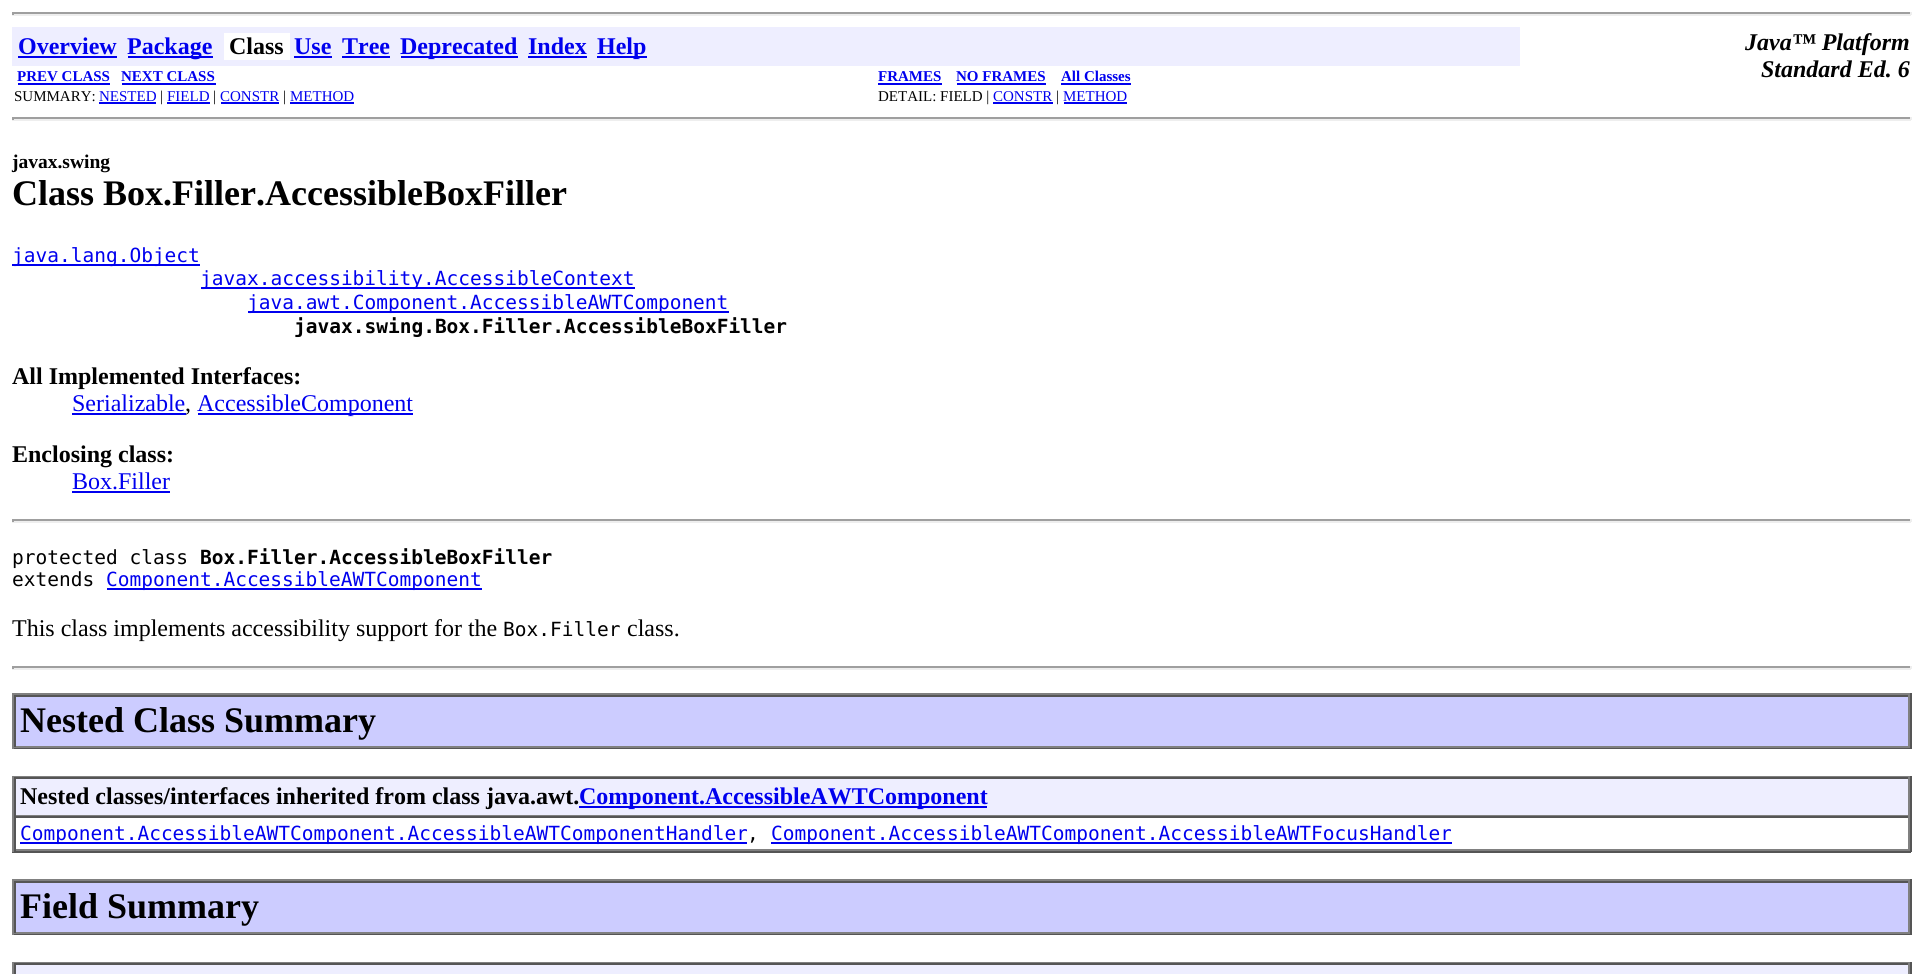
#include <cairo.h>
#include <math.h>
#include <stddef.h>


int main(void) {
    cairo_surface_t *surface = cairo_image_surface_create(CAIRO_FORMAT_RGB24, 1922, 974);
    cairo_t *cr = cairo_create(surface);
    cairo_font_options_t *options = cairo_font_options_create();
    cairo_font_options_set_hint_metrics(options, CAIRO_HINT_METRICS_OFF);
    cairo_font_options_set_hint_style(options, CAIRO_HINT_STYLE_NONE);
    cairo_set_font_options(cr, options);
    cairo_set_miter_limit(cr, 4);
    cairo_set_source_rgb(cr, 1, 1, 1);
    cairo_paint(cr);
    cairo_set_source_rgb(cr, 0.624, 0.624, 0.624);
    cairo_rectangle(cr, 12, 12, 1899, 2);
    cairo_fill(cr);
    cairo_set_source_rgb(cr, 0.933, 0.933, 0.933);
    cairo_rectangle(cr, 1910, 12, 2, 3);
    cairo_fill(cr);
    cairo_rectangle(cr, 12, 14, 1899, 2);
    cairo_fill(cr);
    cairo_set_source_rgb(cr, 0.624, 0.624, 0.624);
    cairo_rectangle(cr, 12, 12, 2, 3);
    cairo_fill(cr);
    cairo_set_source_rgb(cr, 0.933, 0.933, 1);
    cairo_rectangle(cr, 12, 27, 1508, 39);
    cairo_fill(cr);
    cairo_select_font_face(cr, "Liberation Serif", CAIRO_FONT_SLANT_NORMAL, CAIRO_FONT_WEIGHT_BOLD);
    cairo_set_font_size(cr, 24);
    cairo_set_source_rgb(cr, 0, 0, 0.933);
    cairo_move_to(cr, 18, 54);
    cairo_show_text(cr, "Overview");
    cairo_rectangle(cr, 18, 56, 99, 2);
    cairo_fill(cr);
    cairo_rectangle(cr, 128, 56, 85, 2);
    cairo_fill(cr);
    cairo_move_to(cr, 127, 54);
    cairo_show_text(cr, "Package");
    cairo_set_source_rgb(cr, 1, 1, 1);
    cairo_rectangle(cr, 224, 33, 66, 27);
    cairo_fill(cr);
    cairo_set_source_rgb(cr, 0, 0, 0);
    cairo_move_to(cr, 229, 54);
    cairo_show_text(cr, "Class");
    cairo_set_source_rgb(cr, 0, 0, 0.933);
    cairo_move_to(cr, 294, 54);
    cairo_show_text(cr, "Use");
    cairo_rectangle(cr, 294, 56, 38, 2);
    cairo_fill(cr);
    cairo_move_to(cr, 342, 54);
    cairo_show_text(cr, "Tree");
    cairo_rectangle(cr, 342, 56, 48, 2);
    cairo_fill(cr);
    cairo_rectangle(cr, 401, 56, 117, 2);
    cairo_fill(cr);
    cairo_move_to(cr, 400, 54);
    cairo_show_text(cr, "Deprecated");
    cairo_move_to(cr, 528, 54);
    cairo_show_text(cr, "Index");
    cairo_rectangle(cr, 528, 56, 59, 2);
    cairo_fill(cr);
    cairo_rectangle(cr, 597, 56, 50, 2);
    cairo_fill(cr);
    cairo_move_to(cr, 597, 54);
    cairo_show_text(cr, "Help");
    cairo_select_font_face(cr, "Liberation Serif", CAIRO_FONT_SLANT_ITALIC, CAIRO_FONT_WEIGHT_BOLD);
    cairo_set_source_rgb(cr, 0, 0, 0);
    cairo_move_to(cr, 1745, 50);
    cairo_show_text(cr, "Java™ Platform");
    cairo_move_to(cr, 1761, 77);
    cairo_show_text(cr, "Standard Ed. 6");
    cairo_select_font_face(cr, "Liberation Serif", CAIRO_FONT_SLANT_NORMAL, CAIRO_FONT_WEIGHT_BOLD);
    cairo_set_font_size(cr, 15);
    cairo_set_source_rgb(cr, 0, 0, 0.933);
    cairo_move_to(cr, 17, 81);
    cairo_show_text(cr, "PREV CLASS");
    cairo_rectangle(cr, 18, 83, 92, 2);
    cairo_fill(cr);
    cairo_move_to(cr, 121, 81);
    cairo_show_text(cr, "NEXT CLASS");
    cairo_rectangle(cr, 122, 83, 94, 2);
    cairo_fill(cr);
    cairo_move_to(cr, 878, 81);
    cairo_show_text(cr, "FRAMES");
    cairo_rectangle(cr, 878, 83, 64, 2);
    cairo_fill(cr);
    cairo_move_to(cr, 956, 81);
    cairo_show_text(cr, "NO FRAMES");
    cairo_rectangle(cr, 957, 83, 89, 2);
    cairo_fill(cr);
    cairo_move_to(cr, 1061, 81);
    cairo_show_text(cr, "All Classes");
    cairo_rectangle(cr, 1061, 83, 70, 2);
    cairo_fill(cr);
    cairo_select_font_face(cr, "Liberation Serif", CAIRO_FONT_SLANT_NORMAL, CAIRO_FONT_WEIGHT_NORMAL);
    cairo_set_source_rgb(cr, 0, 0, 0);
    cairo_move_to(cr, 14, 101);
    cairo_show_text(cr, "SUMMARY:");
    cairo_set_source_rgb(cr, 0, 0, 0.933);
    cairo_move_to(cr, 99, 101);
    cairo_show_text(cr, "NESTED");
    cairo_rectangle(cr, 99, 102, 57, 2);
    cairo_fill(cr);
    cairo_set_source_rgb(cr, 0, 0, 0);
    cairo_move_to(cr, 160, 101);
    cairo_show_text(cr, "|");
    cairo_set_source_rgb(cr, 0, 0, 0.933);
    cairo_move_to(cr, 167, 101);
    cairo_show_text(cr, "FIELD");
    cairo_rectangle(cr, 167, 102, 43, 2);
    cairo_fill(cr);
    cairo_set_source_rgb(cr, 0, 0, 0);
    cairo_move_to(cr, 213, 101);
    cairo_show_text(cr, "|");
    cairo_set_source_rgb(cr, 0, 0, 0.933);
    cairo_move_to(cr, 220, 101);
    cairo_show_text(cr, "CONSTR");
    cairo_rectangle(cr, 221, 102, 58, 2);
    cairo_fill(cr);
    cairo_set_source_rgb(cr, 0, 0, 0);
    cairo_move_to(cr, 283, 101);
    cairo_show_text(cr, "|");
    cairo_set_source_rgb(cr, 0, 0, 0.933);
    cairo_move_to(cr, 290, 101);
    cairo_show_text(cr, "METHOD");
    cairo_rectangle(cr, 290, 102, 64, 2);
    cairo_fill(cr);
    cairo_set_source_rgb(cr, 0, 0, 0);
    cairo_move_to(cr, 878, 101);
    cairo_show_text(cr, "DETAIL: FIELD |");
    cairo_set_source_rgb(cr, 0, 0, 0.933);
    cairo_move_to(cr, 993, 101);
    cairo_show_text(cr, "CONSTR");
    cairo_rectangle(cr, 993, 102, 60, 2);
    cairo_fill(cr);
    cairo_set_source_rgb(cr, 0, 0, 0);
    cairo_move_to(cr, 1056, 101);
    cairo_show_text(cr, "|");
    cairo_set_source_rgb(cr, 0, 0, 0.933);
    cairo_move_to(cr, 1063, 101);
    cairo_show_text(cr, "METHOD");
    cairo_rectangle(cr, 1064, 102, 63, 2);
    cairo_fill(cr);
    cairo_set_source_rgb(cr, 0.624, 0.624, 0.624);
    cairo_rectangle(cr, 12, 117, 1899, 2);
    cairo_fill(cr);
    cairo_set_source_rgb(cr, 0.933, 0.933, 0.933);
    cairo_rectangle(cr, 1910, 117, 2, 3);
    cairo_fill(cr);
    cairo_rectangle(cr, 12, 119, 1899, 2);
    cairo_fill(cr);
    cairo_set_source_rgb(cr, 0.624, 0.624, 0.624);
    cairo_rectangle(cr, 12, 117, 2, 3);
    cairo_fill(cr);
    cairo_select_font_face(cr, "Liberation Serif", CAIRO_FONT_SLANT_NORMAL, CAIRO_FONT_WEIGHT_BOLD);
    cairo_set_font_size(cr, 19.5);
    cairo_set_source_rgb(cr, 0, 0, 0);
    cairo_move_to(cr, 12, 168);
    cairo_show_text(cr, "javax.swing");
    cairo_set_font_size(cr, 36);
    cairo_move_to(cr, 12, 205);
    cairo_show_text(cr, "Class Box.Filler.AccessibleBoxFiller");
    cairo_set_source_rgb(cr, 0, 0, 0.933);
    cairo_rectangle(cr, 12, 264, 188, 2);
    cairo_fill(cr);
    cairo_select_font_face(cr, "DejaVu Sans Mono", CAIRO_FONT_SLANT_NORMAL, CAIRO_FONT_WEIGHT_NORMAL);
    cairo_set_font_size(cr, 19.5);
    cairo_move_to(cr, 12, 262);
    cairo_show_text(cr, "java.lang.Object");
    cairo_rectangle(cr, 201, 287, 434, 2);
    cairo_fill(cr);
    cairo_move_to(cr, 200, 285);
    cairo_show_text(cr, "javax.accessibility.AccessibleContext");
    cairo_rectangle(cr, 248, 311, 481, 2);
    cairo_fill(cr);
    cairo_move_to(cr, 247, 309);
    cairo_show_text(cr, "java.awt.Component.AccessibleAWTComponent");
    cairo_select_font_face(cr, "DejaVu Sans Mono", CAIRO_FONT_SLANT_NORMAL, CAIRO_FONT_WEIGHT_BOLD);
    cairo_set_source_rgb(cr, 0, 0, 0);
    cairo_move_to(cr, 294, 333);
    cairo_show_text(cr, "javax.swing.Box.Filler.AccessibleBoxFiller");
    cairo_select_font_face(cr, "Liberation Serif", CAIRO_FONT_SLANT_NORMAL, CAIRO_FONT_WEIGHT_BOLD);
    cairo_set_font_size(cr, 24);
    cairo_move_to(cr, 12, 384);
    cairo_show_text(cr, "All Implemented Interfaces:");
    cairo_select_font_face(cr, "Liberation Serif", CAIRO_FONT_SLANT_NORMAL, CAIRO_FONT_WEIGHT_NORMAL);
    cairo_set_source_rgb(cr, 0, 0, 0.933);
    cairo_move_to(cr, 72, 411);
    cairo_show_text(cr, "Serializable");
    cairo_rectangle(cr, 72, 413, 114, 2);
    cairo_fill(cr);
    cairo_set_source_rgb(cr, 0, 0, 0);
    cairo_move_to(cr, 185, 411);
    cairo_show_text(cr, ",");
    cairo_set_source_rgb(cr, 0, 0, 0.933);
    cairo_rectangle(cr, 198, 413, 215, 2);
    cairo_fill(cr);
    cairo_move_to(cr, 197, 411);
    cairo_show_text(cr, "AccessibleComponent");
    cairo_select_font_face(cr, "Liberation Serif", CAIRO_FONT_SLANT_NORMAL, CAIRO_FONT_WEIGHT_BOLD);
    cairo_set_source_rgb(cr, 0, 0, 0);
    cairo_move_to(cr, 12, 462);
    cairo_show_text(cr, "Enclosing class:");
    cairo_select_font_face(cr, "Liberation Serif", CAIRO_FONT_SLANT_NORMAL, CAIRO_FONT_WEIGHT_NORMAL);
    cairo_set_source_rgb(cr, 0, 0, 0.933);
    cairo_move_to(cr, 72, 489);
    cairo_show_text(cr, "Box.Filler");
    cairo_rectangle(cr, 72, 491, 98, 2);
    cairo_fill(cr);
    cairo_set_source_rgb(cr, 0.624, 0.624, 0.624);
    cairo_rectangle(cr, 12, 519, 1899, 2);
    cairo_fill(cr);
    cairo_set_source_rgb(cr, 0.933, 0.933, 0.933);
    cairo_rectangle(cr, 1910, 519, 2, 3);
    cairo_fill(cr);
    cairo_rectangle(cr, 12, 521, 1899, 2);
    cairo_fill(cr);
    cairo_set_source_rgb(cr, 0.624, 0.624, 0.624);
    cairo_rectangle(cr, 12, 519, 2, 3);
    cairo_fill(cr);
    cairo_select_font_face(cr, "DejaVu Sans Mono", CAIRO_FONT_SLANT_NORMAL, CAIRO_FONT_WEIGHT_NORMAL);
    cairo_set_font_size(cr, 19.5);
    cairo_set_source_rgb(cr, 0, 0, 0);
    cairo_move_to(cr, 12, 564);
    cairo_show_text(cr, "protected class");
    cairo_select_font_face(cr, "DejaVu Sans Mono", CAIRO_FONT_SLANT_NORMAL, CAIRO_FONT_WEIGHT_BOLD);
    cairo_move_to(cr, 200, 564);
    cairo_show_text(cr, "Box.Filler.AccessibleBoxFiller");
    cairo_select_font_face(cr, "DejaVu Sans Mono", CAIRO_FONT_SLANT_NORMAL, CAIRO_FONT_WEIGHT_NORMAL);
    cairo_move_to(cr, 12, 586);
    cairo_show_text(cr, "extends");
    cairo_set_source_rgb(cr, 0, 0, 0.933);
    cairo_rectangle(cr, 107, 588, 375, 2);
    cairo_fill(cr);
    cairo_move_to(cr, 106, 586);
    cairo_show_text(cr, "Component.AccessibleAWTComponent");
    cairo_select_font_face(cr, "Liberation Serif", CAIRO_FONT_SLANT_NORMAL, CAIRO_FONT_WEIGHT_NORMAL);
    cairo_set_font_size(cr, 24);
    cairo_set_source_rgb(cr, 0, 0, 0);
    cairo_move_to(cr, 12, 636);
    cairo_show_text(cr, "This class implements accessibility support for the");
    cairo_select_font_face(cr, "DejaVu Sans Mono", CAIRO_FONT_SLANT_NORMAL, CAIRO_FONT_WEIGHT_NORMAL);
    cairo_set_font_size(cr, 19.5);
    cairo_move_to(cr, 503, 636);
    cairo_show_text(cr, "Box.Filler");
    cairo_select_font_face(cr, "Liberation Serif", CAIRO_FONT_SLANT_NORMAL, CAIRO_FONT_WEIGHT_NORMAL);
    cairo_set_font_size(cr, 24);
    cairo_move_to(cr, 627, 636);
    cairo_show_text(cr, "class.");
    cairo_set_source_rgb(cr, 0.624, 0.624, 0.624);
    cairo_rectangle(cr, 12, 666, 1899, 2);
    cairo_fill(cr);
    cairo_set_source_rgb(cr, 0.933, 0.933, 0.933);
    cairo_rectangle(cr, 1910, 666, 2, 3);
    cairo_fill(cr);
    cairo_rectangle(cr, 12, 668, 1899, 2);
    cairo_fill(cr);
    cairo_set_source_rgb(cr, 0.624, 0.624, 0.624);
    cairo_rectangle(cr, 12, 666, 2, 3);
    cairo_fill(cr);
    cairo_set_source_rgb(cr, 0.502, 0.502, 0.502);
    cairo_rectangle(cr, 12, 693, 1899, 2);
    cairo_fill(cr);
    cairo_set_source_rgb(cr, 0.333, 0.333, 0.333);
    cairo_rectangle(cr, 1910, 693, 2, 56);
    cairo_fill(cr);
    cairo_rectangle(cr, 12, 747, 1899, 2);
    cairo_fill(cr);
    cairo_set_source_rgb(cr, 0.502, 0.502, 0.502);
    cairo_rectangle(cr, 12, 693, 2, 56);
    cairo_fill(cr);
    cairo_set_source_rgb(cr, 0.8, 0.8, 1);
    cairo_rectangle(cr, 16, 697, 1892, 49);
    cairo_fill(cr);
    cairo_set_source_rgb(cr, 0.333, 0.333, 0.333);
    cairo_rectangle(cr, 14, 695, 1896, 2);
    cairo_fill(cr);
    cairo_set_source_rgb(cr, 0.502, 0.502, 0.502);
    cairo_rectangle(cr, 1908, 695, 2, 52);
    cairo_fill(cr);
    cairo_rectangle(cr, 14, 746, 1896, 2);
    cairo_fill(cr);
    cairo_set_source_rgb(cr, 0.333, 0.333, 0.333);
    cairo_rectangle(cr, 14, 695, 2, 52);
    cairo_fill(cr);
    cairo_select_font_face(cr, "Liberation Serif", CAIRO_FONT_SLANT_NORMAL, CAIRO_FONT_WEIGHT_BOLD);
    cairo_set_font_size(cr, 36);
    cairo_set_source_rgb(cr, 0, 0, 0);
    cairo_move_to(cr, 20, 732);
    cairo_show_text(cr, "Nested Class Summary");
    cairo_set_source_rgb(cr, 0.502, 0.502, 0.502);
    cairo_rectangle(cr, 12, 776, 1899, 1);
    cairo_fill(cr);
    cairo_set_source_rgb(cr, 0.333, 0.333, 0.333);
    cairo_rectangle(cr, 1910, 776, 2, 76);
    cairo_fill(cr);
    cairo_rectangle(cr, 12, 851, 1899, 2);
    cairo_fill(cr);
    cairo_set_source_rgb(cr, 0.502, 0.502, 0.502);
    cairo_rectangle(cr, 12, 776, 2, 76);
    cairo_fill(cr);
    cairo_set_source_rgb(cr, 0.933, 0.933, 1);
    cairo_rectangle(cr, 16, 779, 1892, 36);
    cairo_fill(cr);
    cairo_set_source_rgb(cr, 0.333, 0.333, 0.333);
    cairo_rectangle(cr, 14, 777, 1896, 2);
    cairo_fill(cr);
    cairo_set_source_rgb(cr, 0.502, 0.502, 0.502);
    cairo_rectangle(cr, 1908, 777, 2, 39);
    cairo_fill(cr);
    cairo_rectangle(cr, 14, 815, 1896, 1);
    cairo_fill(cr);
    cairo_set_source_rgb(cr, 0.333, 0.333, 0.333);
    cairo_rectangle(cr, 14, 777, 2, 39);
    cairo_fill(cr);
    cairo_set_font_size(cr, 24);
    cairo_set_source_rgb(cr, 0, 0, 0);
    cairo_move_to(cr, 20, 804);
    cairo_show_text(cr, "Nested classes/interfaces inherited from class java.awt.");
    cairo_set_source_rgb(cr, 0, 0, 0.933);
    cairo_rectangle(cr, 579, 806, 408, 2);
    cairo_fill(cr);
    cairo_move_to(cr, 579, 804);
    cairo_show_text(cr, "Component.AccessibleAWTComponent");
    cairo_set_source_rgb(cr, 0.333, 0.333, 0.333);
    cairo_rectangle(cr, 14, 816, 1896, 2);
    cairo_fill(cr);
    cairo_set_source_rgb(cr, 0.502, 0.502, 0.502);
    cairo_rectangle(cr, 1908, 816, 2, 35);
    cairo_fill(cr);
    cairo_rectangle(cr, 14, 849, 1896, 2);
    cairo_fill(cr);
    cairo_set_source_rgb(cr, 0.333, 0.333, 0.333);
    cairo_rectangle(cr, 14, 816, 2, 35);
    cairo_fill(cr);
    cairo_set_source_rgb(cr, 0, 0, 0.933);
    cairo_rectangle(cr, 20, 842, 727, 2);
    cairo_fill(cr);
    cairo_select_font_face(cr, "DejaVu Sans Mono", CAIRO_FONT_SLANT_NORMAL, CAIRO_FONT_WEIGHT_NORMAL);
    cairo_set_font_size(cr, 19.5);
    cairo_move_to(cr, 20, 840);
    cairo_show_text(cr, "Component.AccessibleAWTComponent.AccessibleAWTComponentHandler");
    cairo_set_source_rgb(cr, 0, 0, 0);
    cairo_move_to(cr, 747, 840);
    cairo_show_text(cr, ",");
    cairo_set_source_rgb(cr, 0, 0, 0.933);
    cairo_rectangle(cr, 771, 842, 681, 2);
    cairo_fill(cr);
    cairo_move_to(cr, 771, 840);
    cairo_show_text(cr, "Component.AccessibleAWTComponent.AccessibleAWTFocusHandler");
    cairo_set_source_rgb(cr, 0.502, 0.502, 0.502);
    cairo_rectangle(cr, 12, 879, 1899, 2);
    cairo_fill(cr);
    cairo_set_source_rgb(cr, 0.333, 0.333, 0.333);
    cairo_rectangle(cr, 1910, 879, 2, 56);
    cairo_fill(cr);
    cairo_rectangle(cr, 12, 933, 1899, 2);
    cairo_fill(cr);
    cairo_set_source_rgb(cr, 0.502, 0.502, 0.502);
    cairo_rectangle(cr, 12, 879, 2, 56);
    cairo_fill(cr);
    cairo_set_source_rgb(cr, 0.8, 0.8, 1);
    cairo_rectangle(cr, 16, 883, 1892, 49);
    cairo_fill(cr);
    cairo_set_source_rgb(cr, 0.333, 0.333, 0.333);
    cairo_rectangle(cr, 14, 881, 1896, 2);
    cairo_fill(cr);
    cairo_set_source_rgb(cr, 0.502, 0.502, 0.502);
    cairo_rectangle(cr, 1908, 881, 2, 52);
    cairo_fill(cr);
    cairo_rectangle(cr, 14, 932, 1896, 2);
    cairo_fill(cr);
    cairo_set_source_rgb(cr, 0.333, 0.333, 0.333);
    cairo_rectangle(cr, 14, 881, 2, 52);
    cairo_fill(cr);
    cairo_select_font_face(cr, "Liberation Serif", CAIRO_FONT_SLANT_NORMAL, CAIRO_FONT_WEIGHT_BOLD);
    cairo_set_font_size(cr, 36);
    cairo_set_source_rgb(cr, 0, 0, 0);
    cairo_move_to(cr, 20, 918);
    cairo_show_text(cr, "Field Summary");
    cairo_set_source_rgb(cr, 0.502, 0.502, 0.502);
    cairo_rectangle(cr, 12, 962, 1899, 1);
    cairo_fill(cr);
    cairo_set_source_rgb(cr, 0.333, 0.333, 0.333);
    cairo_rectangle(cr, 1910, 962, 2, 12);
    cairo_fill(cr);
    cairo_set_source_rgb(cr, 0.502, 0.502, 0.502);
    cairo_rectangle(cr, 12, 962, 2, 12);
    cairo_fill(cr);
    cairo_set_source_rgb(cr, 0.933, 0.933, 1);
    cairo_rectangle(cr, 16, 965, 1892, 9);
    cairo_fill(cr);
    cairo_set_source_rgb(cr, 0.333, 0.333, 0.333);
    cairo_rectangle(cr, 14, 963, 1896, 2);
    cairo_fill(cr);
    cairo_set_source_rgb(cr, 0.502, 0.502, 0.502);
    cairo_rectangle(cr, 1908, 963, 2, 11);
    cairo_fill(cr);
    cairo_set_source_rgb(cr, 0.333, 0.333, 0.333);
    cairo_rectangle(cr, 14, 963, 2, 11);
    cairo_fill(cr);
    cairo_surface_write_to_png(surface, "page.png");
    cairo_font_options_destroy(options);
    cairo_destroy(cr);
    cairo_surface_destroy(surface);
    return 0;
}
